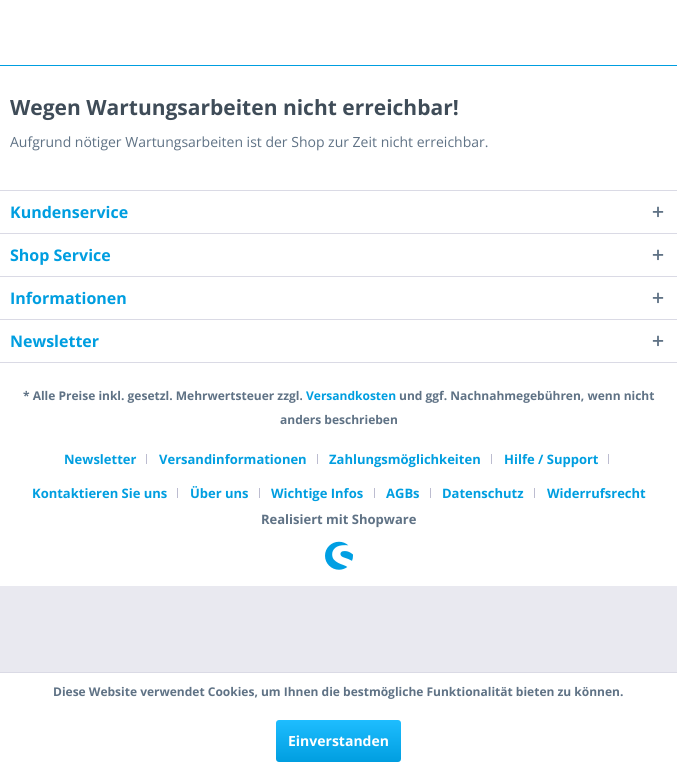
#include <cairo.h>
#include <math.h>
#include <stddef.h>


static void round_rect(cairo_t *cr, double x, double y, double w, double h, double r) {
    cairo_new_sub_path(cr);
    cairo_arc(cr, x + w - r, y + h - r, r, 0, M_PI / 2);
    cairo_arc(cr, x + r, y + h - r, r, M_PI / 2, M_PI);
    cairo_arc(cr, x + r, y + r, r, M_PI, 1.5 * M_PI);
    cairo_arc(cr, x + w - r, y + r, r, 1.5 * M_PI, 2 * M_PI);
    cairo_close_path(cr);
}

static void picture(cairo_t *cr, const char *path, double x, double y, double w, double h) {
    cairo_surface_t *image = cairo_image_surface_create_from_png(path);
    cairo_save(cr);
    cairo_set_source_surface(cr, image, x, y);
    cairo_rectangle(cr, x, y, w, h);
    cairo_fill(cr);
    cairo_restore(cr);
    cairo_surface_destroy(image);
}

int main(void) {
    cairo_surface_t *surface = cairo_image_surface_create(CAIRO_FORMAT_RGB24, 677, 772);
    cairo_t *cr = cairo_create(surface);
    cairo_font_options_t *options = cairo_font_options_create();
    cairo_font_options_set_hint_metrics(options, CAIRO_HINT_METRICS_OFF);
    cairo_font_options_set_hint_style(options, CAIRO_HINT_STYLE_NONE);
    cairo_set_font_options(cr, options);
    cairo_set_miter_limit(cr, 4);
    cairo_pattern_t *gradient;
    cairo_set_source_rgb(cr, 0.914, 0.914, 0.941);
    cairo_paint(cr);
    cairo_set_source_rgb(cr, 1, 1, 1);
    cairo_rectangle(cr, 0, 0, 677, 65);
    cairo_fill(cr);
    cairo_set_source_rgb(cr, 0, 0.62, 0.878);
    cairo_rectangle(cr, 0, 65, 677, 1);
    cairo_fill(cr);
    cairo_set_source_rgb(cr, 1, 1, 1);
    cairo_rectangle(cr, 0, 66, 677, 124);
    cairo_fill(cr);
    cairo_select_font_face(cr, "Open Sans", CAIRO_FONT_SLANT_NORMAL, CAIRO_FONT_WEIGHT_BOLD);
    cairo_set_font_size(cr, 21);
    cairo_set_source_rgb(cr, 0.247, 0.298, 0.345);
    cairo_move_to(cr, 10, 115);
    cairo_show_text(cr, "Wegen Wartungsarbeiten nicht erreichbar!");
    cairo_select_font_face(cr, "Open Sans", CAIRO_FONT_SLANT_NORMAL, CAIRO_FONT_WEIGHT_NORMAL);
    cairo_set_font_size(cr, 14);
    cairo_set_source_rgb(cr, 0.373, 0.447, 0.522);
    cairo_move_to(cr, 10, 147);
    cairo_show_text(cr, "Aufgrund nötiger Wartungsarbeiten ist der Shop zur Zeit nicht erreichbar.");
    cairo_set_source_rgb(cr, 1, 1, 1);
    cairo_rectangle(cr, 0, 191, 677, 395);
    cairo_fill(cr);
    cairo_set_source_rgb(cr, 0.855, 0.855, 0.898);
    cairo_rectangle(cr, 0, 190, 677, 1);
    cairo_fill(cr);
    cairo_select_font_face(cr, "Open Sans", CAIRO_FONT_SLANT_NORMAL, CAIRO_FONT_WEIGHT_BOLD);
    cairo_set_font_size(cr, 16);
    cairo_set_source_rgb(cr, 0, 0.62, 0.878);
    cairo_move_to(cr, 10, 218);
    cairo_show_text(cr, "Kundenservice");
    picture(cr, "img1.png", 652, 206, 12, 12);
    cairo_set_source_rgb(cr, 0.855, 0.855, 0.898);
    cairo_rectangle(cr, 0, 233, 677, 1);
    cairo_fill(cr);
    cairo_set_source_rgb(cr, 0, 0.62, 0.878);
    cairo_move_to(cr, 10, 261);
    cairo_show_text(cr, "Shop Service");
    picture(cr, "img1.png", 652, 249, 12, 12);
    cairo_set_source_rgb(cr, 0.855, 0.855, 0.898);
    cairo_rectangle(cr, 0, 276, 677, 1);
    cairo_fill(cr);
    cairo_set_source_rgb(cr, 0, 0.62, 0.878);
    cairo_move_to(cr, 10, 304);
    cairo_show_text(cr, "Informationen");
    picture(cr, "img1.png", 652, 292, 12, 12);
    cairo_set_source_rgb(cr, 0.855, 0.855, 0.898);
    cairo_rectangle(cr, 0, 319, 677, 1);
    cairo_fill(cr);
    cairo_rectangle(cr, 0, 362, 677, 1);
    cairo_fill(cr);
    cairo_set_source_rgb(cr, 0, 0.62, 0.878);
    cairo_move_to(cr, 10, 347);
    cairo_show_text(cr, "Newsletter");
    picture(cr, "img1.png", 652, 335, 12, 12);
    cairo_set_font_size(cr, 12);
    cairo_set_source_rgb(cr, 0.373, 0.447, 0.522);
    cairo_move_to(cr, 23, 400);
    cairo_show_text(cr, "* Alle Preise inkl. gesetzl. Mehrwertsteuer zzgl.");
    cairo_set_source_rgb(cr, 0, 0.62, 0.878);
    cairo_move_to(cr, 306, 400);
    cairo_show_text(cr, "Versandkosten");
    cairo_set_source_rgb(cr, 0.373, 0.447, 0.522);
    cairo_move_to(cr, 399, 400);
    cairo_show_text(cr, "und ggf. Nachnahmegebühren, wenn nicht");
    cairo_move_to(cr, 280, 424);
    cairo_show_text(cr, "anders beschrieben");
    cairo_set_font_size(cr, 13);
    cairo_set_source_rgb(cr, 0, 0.62, 0.878);
    cairo_move_to(cr, 64, 464);
    cairo_show_text(cr, "Newsletter");
    cairo_set_source_rgb(cr, 0.737, 0.737, 0.816);
    cairo_rectangle(cr, 146, 454, 1, 10);
    cairo_fill(cr);
    cairo_set_source_rgb(cr, 0, 0.62, 0.878);
    cairo_move_to(cr, 159, 464);
    cairo_show_text(cr, "Versandinformationen");
    cairo_set_source_rgb(cr, 0.737, 0.737, 0.816);
    cairo_rectangle(cr, 317, 454, 1, 10);
    cairo_fill(cr);
    cairo_set_source_rgb(cr, 0, 0.62, 0.878);
    cairo_move_to(cr, 329, 464);
    cairo_show_text(cr, "Zahlungsmöglichkeiten");
    cairo_set_source_rgb(cr, 0.737, 0.737, 0.816);
    cairo_rectangle(cr, 491, 454, 1, 10);
    cairo_fill(cr);
    cairo_set_source_rgb(cr, 0, 0.62, 0.878);
    cairo_move_to(cr, 504, 464);
    cairo_show_text(cr, "Hilfe / Support");
    cairo_set_source_rgb(cr, 0.737, 0.737, 0.816);
    cairo_rectangle(cr, 608, 454, 1, 10);
    cairo_fill(cr);
    cairo_set_source_rgb(cr, 0, 0.62, 0.878);
    cairo_move_to(cr, 32, 498);
    cairo_show_text(cr, "Kontaktieren Sie uns");
    cairo_set_source_rgb(cr, 0.737, 0.737, 0.816);
    cairo_rectangle(cr, 177, 488, 1, 10);
    cairo_fill(cr);
    cairo_set_source_rgb(cr, 0, 0.62, 0.878);
    cairo_move_to(cr, 190, 498);
    cairo_show_text(cr, "Über uns");
    cairo_set_source_rgb(cr, 0.737, 0.737, 0.816);
    cairo_rectangle(cr, 259, 488, 1, 10);
    cairo_fill(cr);
    cairo_set_source_rgb(cr, 0, 0.62, 0.878);
    cairo_move_to(cr, 271, 498);
    cairo_show_text(cr, "Wichtige Infos");
    cairo_set_source_rgb(cr, 0.737, 0.737, 0.816);
    cairo_rectangle(cr, 374, 488, 1, 10);
    cairo_fill(cr);
    cairo_set_source_rgb(cr, 0, 0.62, 0.878);
    cairo_move_to(cr, 386, 498);
    cairo_show_text(cr, "AGBs");
    cairo_set_source_rgb(cr, 0.737, 0.737, 0.816);
    cairo_rectangle(cr, 430, 488, 1, 10);
    cairo_fill(cr);
    cairo_set_source_rgb(cr, 0, 0.62, 0.878);
    cairo_move_to(cr, 442, 498);
    cairo_show_text(cr, "Datenschutz");
    cairo_set_source_rgb(cr, 0.737, 0.737, 0.816);
    cairo_rectangle(cr, 534, 488, 1, 10);
    cairo_fill(cr);
    cairo_set_source_rgb(cr, 0, 0.62, 0.878);
    cairo_move_to(cr, 547, 498);
    cairo_show_text(cr, "Widerrufsrecht");
    cairo_set_source_rgb(cr, 0.373, 0.447, 0.522);
    cairo_move_to(cr, 261, 524);
    cairo_show_text(cr, "Realisiert mit Shopware");
    picture(cr, "img2.png", 325, 541, 28, 29);
    cairo_set_source_rgb(cr, 1, 1, 1);
    cairo_rectangle(cr, 0, 673, 677, 99);
    cairo_fill(cr);
    cairo_set_source_rgb(cr, 0.855, 0.855, 0.898);
    cairo_rectangle(cr, 0, 672, 677, 1);
    cairo_fill(cr);
    cairo_set_font_size(cr, 12);
    cairo_set_source_rgb(cr, 0.373, 0.447, 0.522);
    cairo_move_to(cr, 53, 696);
    cairo_show_text(cr, "Diese Website verwendet Cookies, um Ihnen die bestmögliche Funktionalität bieten zu können.");
    gradient = cairo_pattern_create_linear(339, 720, 339, 762);
    cairo_pattern_add_color_stop_rgba(gradient, 0, 0.118, 0.741, 1, 1);
    cairo_pattern_add_color_stop_rgba(gradient, 1, 0, 0.62, 0.878, 1);
    cairo_set_source(cr, gradient);
    cairo_pattern_destroy(gradient);
    round_rect(cr, 276, 720, 125, 42, 3);
    cairo_fill(cr);
    cairo_set_font_size(cr, 14);
    cairo_set_source_rgb(cr, 1, 1, 1);
    cairo_move_to(cr, 288, 746);
    cairo_show_text(cr, "Einverstanden");
    cairo_surface_write_to_png(surface, "page.png");
    cairo_font_options_destroy(options);
    cairo_destroy(cr);
    cairo_surface_destroy(surface);
    return 0;
}
